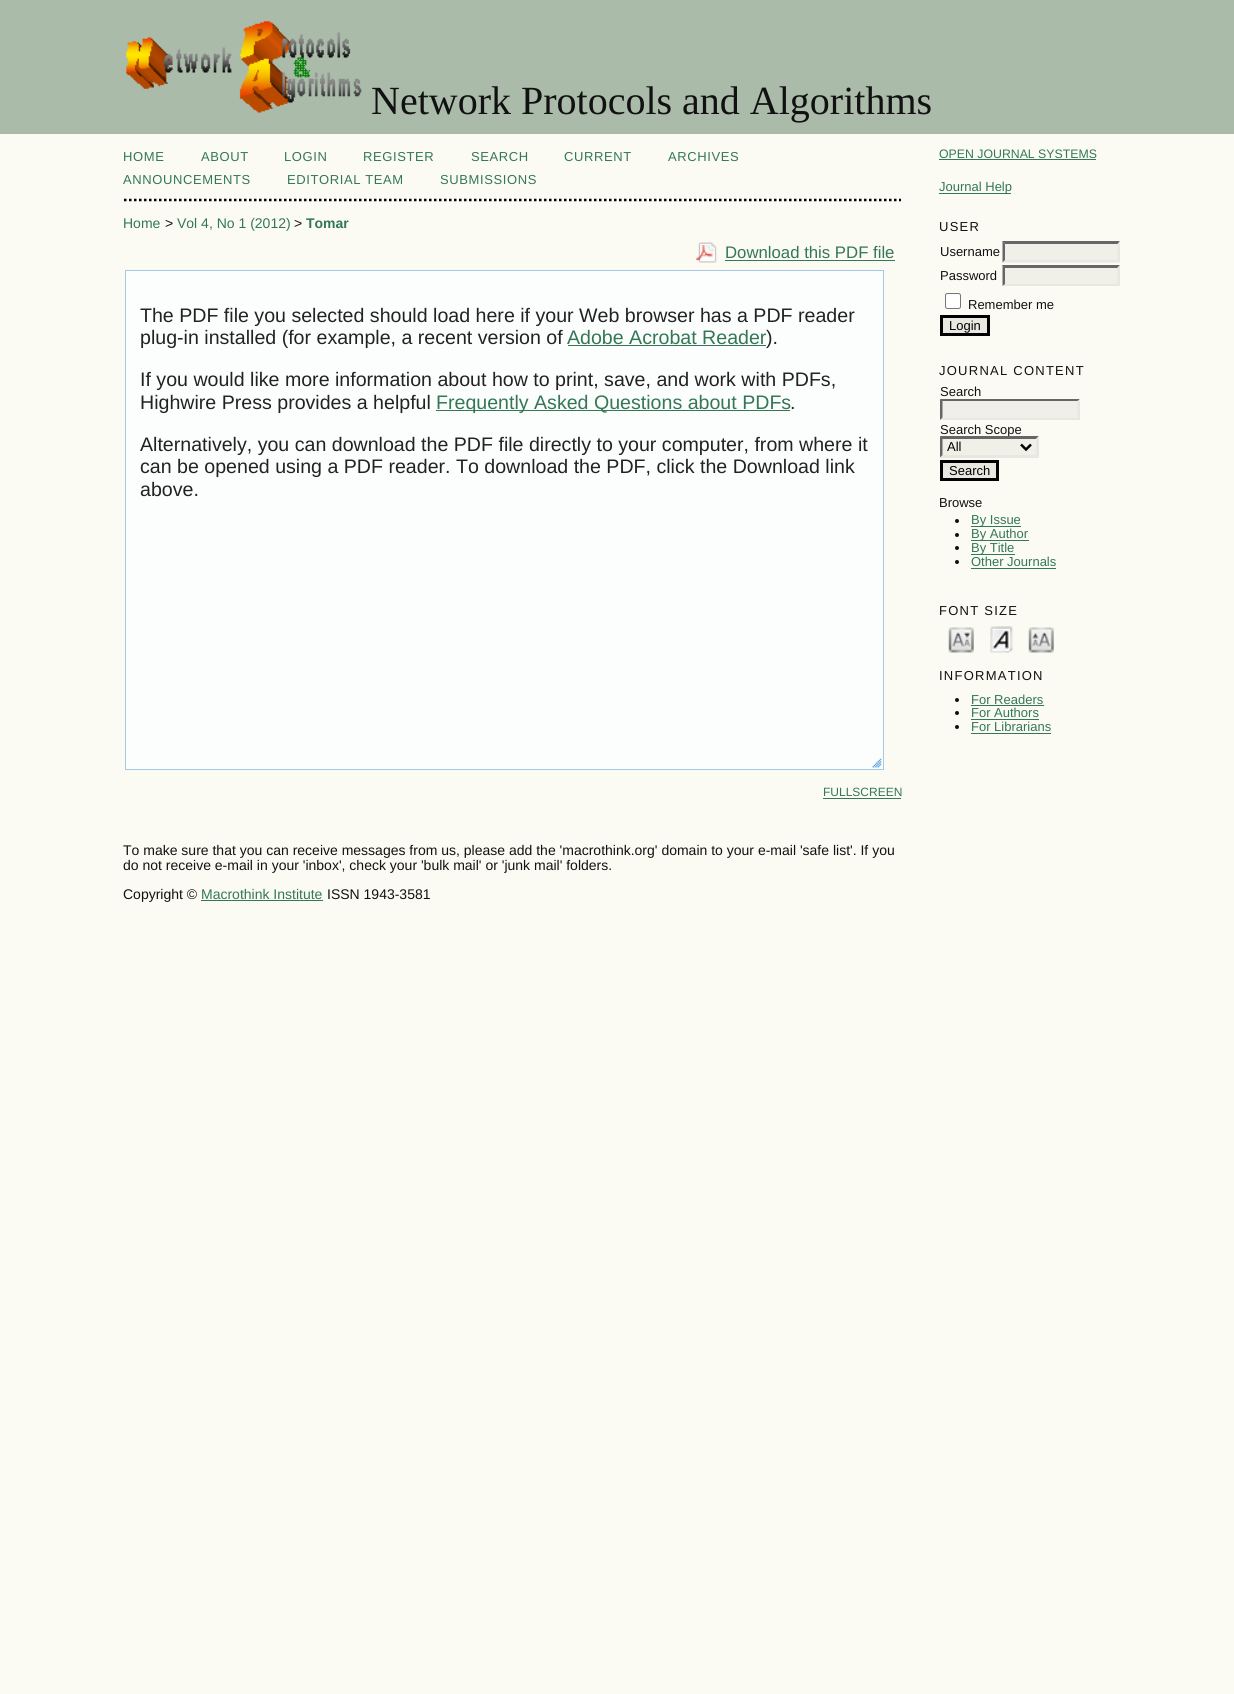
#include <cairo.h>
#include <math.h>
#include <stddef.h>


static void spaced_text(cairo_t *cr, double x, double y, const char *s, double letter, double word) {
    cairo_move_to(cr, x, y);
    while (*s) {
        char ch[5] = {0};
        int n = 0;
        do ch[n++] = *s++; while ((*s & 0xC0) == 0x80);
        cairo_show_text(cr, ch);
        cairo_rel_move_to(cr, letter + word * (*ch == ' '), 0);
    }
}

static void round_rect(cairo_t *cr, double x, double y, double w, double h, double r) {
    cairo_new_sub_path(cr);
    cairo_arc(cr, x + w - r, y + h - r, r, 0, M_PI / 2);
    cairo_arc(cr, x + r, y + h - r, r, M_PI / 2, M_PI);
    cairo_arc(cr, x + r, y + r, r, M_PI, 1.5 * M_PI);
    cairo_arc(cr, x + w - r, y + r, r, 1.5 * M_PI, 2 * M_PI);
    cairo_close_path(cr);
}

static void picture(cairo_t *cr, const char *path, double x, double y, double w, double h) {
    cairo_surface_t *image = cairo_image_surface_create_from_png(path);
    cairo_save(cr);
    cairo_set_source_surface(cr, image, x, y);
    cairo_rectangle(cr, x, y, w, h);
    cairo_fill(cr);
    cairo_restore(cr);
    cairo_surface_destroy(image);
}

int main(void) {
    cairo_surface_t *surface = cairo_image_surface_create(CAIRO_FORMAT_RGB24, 1234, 1694);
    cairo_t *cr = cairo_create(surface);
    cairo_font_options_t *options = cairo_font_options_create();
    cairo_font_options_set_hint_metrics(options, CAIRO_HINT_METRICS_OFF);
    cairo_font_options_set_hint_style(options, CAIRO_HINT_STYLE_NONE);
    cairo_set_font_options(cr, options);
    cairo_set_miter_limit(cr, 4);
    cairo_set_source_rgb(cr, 0.984, 0.984, 0.953);
    cairo_paint(cr);
    cairo_set_source_rgb(cr, 0.667, 0.733, 0.667);
    cairo_rectangle(cr, 0, 0, 1234, 134);
    cairo_fill(cr);
    picture(cr, "img1.png", 126, 21, 236, 92);
    cairo_select_font_face(cr, "Liberation Serif", CAIRO_FONT_SLANT_NORMAL, CAIRO_FONT_WEIGHT_NORMAL);
    cairo_set_font_size(cr, 40);
    cairo_set_source_rgb(cr, 0.067, 0.067, 0.067);
    cairo_move_to(cr, 371, 114);
    cairo_show_text(cr, "Network Protocols and Algorithms");
    cairo_new_path(cr);
    cairo_move_to(cr, 124, 200);
    cairo_line_to(cr, 901, 200);
    cairo_set_source_rgb(cr, 0, 0, 0);
    cairo_set_line_width(cr, 2.5);
    cairo_set_dash(cr, (double[]){2.5, 2.5}, 2, 0);
    cairo_stroke(cr);
    cairo_select_font_face(cr, "Liberation Sans", CAIRO_FONT_SLANT_NORMAL, CAIRO_FONT_WEIGHT_NORMAL);
    cairo_set_font_size(cr, 13);
    cairo_set_source_rgb(cr, 0.2, 0.467, 0.333);
    spaced_text(cr, 123, 161, "HOME", 0.6, 0);
    spaced_text(cr, 201, 161, "ABOUT", 0.6, 0);
    spaced_text(cr, 284, 161, "LOGIN", 0.6, 0);
    spaced_text(cr, 363, 161, "REGISTER", 0.6, 0);
    spaced_text(cr, 471, 161, "SEARCH", 0.6, 0);
    spaced_text(cr, 564, 161, "CURRENT", 0.6, 0);
    spaced_text(cr, 668, 161, "ARCHIVES", 0.6, 0);
    spaced_text(cr, 123, 184, "ANNOUNCEMENTS", 0.6, 0);
    spaced_text(cr, 287, 184, "EDITORIAL TEAM", 0.6, 0);
    spaced_text(cr, 440, 184, "SUBMISSIONS", 0.6, 0);
    cairo_set_font_size(cr, 14);
    cairo_move_to(cr, 123, 228);
    cairo_show_text(cr, "Home");
    cairo_set_source_rgb(cr, 0.067, 0.067, 0.067);
    cairo_move_to(cr, 165, 228);
    cairo_show_text(cr, ">");
    cairo_set_source_rgb(cr, 0.2, 0.467, 0.333);
    cairo_move_to(cr, 177, 228);
    cairo_show_text(cr, "Vol 4, No 1 (2012)");
    cairo_set_source_rgb(cr, 0.067, 0.067, 0.067);
    cairo_move_to(cr, 294, 228);
    cairo_show_text(cr, ">");
    cairo_select_font_face(cr, "Liberation Sans", CAIRO_FONT_SLANT_NORMAL, CAIRO_FONT_WEIGHT_BOLD);
    cairo_set_source_rgb(cr, 0.2, 0.467, 0.333);
    cairo_move_to(cr, 306, 228);
    cairo_show_text(cr, "Tomar");
    picture(cr, "img2.png", 696, 242, 21, 21);
    cairo_select_font_face(cr, "Liberation Sans", CAIRO_FONT_SLANT_NORMAL, CAIRO_FONT_WEIGHT_NORMAL);
    cairo_set_font_size(cr, 16.75);
    cairo_move_to(cr, 725, 258);
    cairo_show_text(cr, "Download this PDF file");
    cairo_rectangle(cr, 725, 260, 170, 1);
    cairo_fill(cr);
    cairo_set_source_rgb(cr, 0.988, 0.992, 0.992);
    cairo_rectangle(cr, 125.5, 270.5, 758, 499);
    cairo_fill_preserve(cr);
    cairo_set_source_rgb(cr, 0.651, 0.788, 0.886);
    cairo_set_line_width(cr, 1);
    cairo_set_dash(cr, NULL, 0, 0);
    cairo_stroke(cr);
    cairo_set_font_size(cr, 19.6);
    cairo_set_source_rgb(cr, 0.133, 0.133, 0.133);
    cairo_move_to(cr, 140, 322);
    cairo_show_text(cr, "The PDF file you selected should load here if your Web browser has a PDF reader");
    cairo_move_to(cr, 140, 344);
    cairo_show_text(cr, "plug-in installed (for example, a recent version of");
    cairo_set_source_rgb(cr, 0.2, 0.467, 0.333);
    cairo_move_to(cr, 567, 344);
    cairo_show_text(cr, "Adobe Acrobat Reader");
    cairo_rectangle(cr, 568, 345, 198, 1);
    cairo_fill(cr);
    cairo_set_source_rgb(cr, 0.133, 0.133, 0.133);
    cairo_move_to(cr, 766, 344);
    cairo_show_text(cr, ").");
    cairo_move_to(cr, 140, 386);
    cairo_show_text(cr, "If you would like more information about how to print, save, and work with PDFs,");
    cairo_move_to(cr, 140, 409);
    cairo_show_text(cr, "Highwire Press provides a helpful");
    cairo_set_source_rgb(cr, 0.2, 0.467, 0.333);
    cairo_rectangle(cr, 436, 410, 354, 1);
    cairo_fill(cr);
    cairo_move_to(cr, 436, 409);
    cairo_show_text(cr, "Frequently Asked Questions about PDFs");
    cairo_set_source_rgb(cr, 0.133, 0.133, 0.133);
    cairo_move_to(cr, 790, 409);
    cairo_show_text(cr, ".");
    cairo_move_to(cr, 140, 451);
    cairo_show_text(cr, "Alternatively, you can download the PDF file directly to your computer, from where it");
    cairo_move_to(cr, 140, 473);
    cairo_show_text(cr, "can be opened using a PDF reader. To download the PDF, click the Download link");
    cairo_move_to(cr, 140, 496);
    cairo_show_text(cr, "above.");
    picture(cr, "img3.png", 872, 758, 10, 10);
    cairo_set_font_size(cr, 12);
    cairo_set_source_rgb(cr, 0.2, 0.467, 0.333);
    cairo_move_to(cr, 823, 796);
    cairo_show_text(cr, "FULLSCREEN");
    cairo_rectangle(cr, 823, 798, 78, 1);
    cairo_fill(cr);
    cairo_set_font_size(cr, 14);
    cairo_set_source_rgb(cr, 0.067, 0.067, 0.067);
    cairo_move_to(cr, 123, 855);
    cairo_show_text(cr, "To make sure that you can receive messages from us, please add the 'macrothink.org' domain to your e-mail 'safe list'. If you");
    cairo_move_to(cr, 123, 870);
    cairo_show_text(cr, "do not receive e-mail in your 'inbox', check your 'bulk mail' or 'junk mail' folders.");
    cairo_move_to(cr, 123, 899);
    cairo_show_text(cr, "Copyright ©");
    cairo_set_source_rgb(cr, 0.2, 0.467, 0.333);
    cairo_move_to(cr, 201, 899);
    cairo_show_text(cr, "Macrothink Institute");
    cairo_rectangle(cr, 201, 900, 122, 1);
    cairo_fill(cr);
    cairo_set_source_rgb(cr, 0.067, 0.067, 0.067);
    cairo_move_to(cr, 327, 899);
    cairo_show_text(cr, "ISSN 1943-3581");
    cairo_set_font_size(cr, 12.3);
    cairo_set_source_rgb(cr, 0.2, 0.467, 0.333);
    cairo_move_to(cr, 939, 158);
    cairo_show_text(cr, "OPEN JOURNAL SYSTEMS");
    cairo_rectangle(cr, 939, 159, 157, 1);
    cairo_fill(cr);
    cairo_rectangle(cr, 939, 193, 72, 1);
    cairo_fill(cr);
    cairo_set_font_size(cr, 13);
    cairo_move_to(cr, 939, 191);
    cairo_show_text(cr, "Journal Help");
    cairo_set_source_rgb(cr, 0.067, 0.067, 0.067);
    spaced_text(cr, 939, 231, "USER", 1.25, 0);
    cairo_move_to(cr, 940, 256);
    cairo_show_text(cr, "Username");
    cairo_set_source_rgb(cr, 0.941, 0.941, 0.91);
    cairo_rectangle(cr, 1003, 241, 117, 22);
    cairo_fill(cr);
    cairo_set_source_rgb(cr, 0.4, 0.4, 0.4);
    cairo_new_path(cr);
    cairo_move_to(cr, 1002, 241);
    cairo_line_to(cr, 1120, 241);
    cairo_line_to(cr, 1118, 244);
    cairo_line_to(cr, 1005, 244);
    cairo_close_path(cr);
    cairo_fill(cr);
    cairo_set_source_rgb(cr, 0.91, 0.91, 0.882);
    cairo_new_path(cr);
    cairo_move_to(cr, 1120, 241);
    cairo_line_to(cr, 1120, 262.5);
    cairo_line_to(cr, 1117.5, 260);
    cairo_line_to(cr, 1117.5, 244);
    cairo_close_path(cr);
    cairo_fill(cr);
    cairo_new_path(cr);
    cairo_move_to(cr, 1120, 262);
    cairo_line_to(cr, 1002, 262);
    cairo_line_to(cr, 1005, 260);
    cairo_line_to(cr, 1118, 260);
    cairo_close_path(cr);
    cairo_fill(cr);
    cairo_set_source_rgb(cr, 0.4, 0.4, 0.4);
    cairo_new_path(cr);
    cairo_move_to(cr, 1002.5, 262.5);
    cairo_line_to(cr, 1002.5, 241);
    cairo_line_to(cr, 1005, 244);
    cairo_line_to(cr, 1005, 260);
    cairo_close_path(cr);
    cairo_fill(cr);
    cairo_set_source_rgb(cr, 0.067, 0.067, 0.067);
    cairo_move_to(cr, 940, 280);
    cairo_show_text(cr, "Password");
    cairo_set_source_rgb(cr, 0.941, 0.941, 0.91);
    cairo_rectangle(cr, 1003, 265, 117, 21);
    cairo_fill(cr);
    cairo_set_source_rgb(cr, 0.4, 0.4, 0.4);
    cairo_new_path(cr);
    cairo_move_to(cr, 1002, 265);
    cairo_line_to(cr, 1120, 265);
    cairo_line_to(cr, 1118, 268);
    cairo_line_to(cr, 1005, 268);
    cairo_close_path(cr);
    cairo_fill(cr);
    cairo_set_source_rgb(cr, 0.91, 0.91, 0.882);
    cairo_new_path(cr);
    cairo_move_to(cr, 1120, 265);
    cairo_line_to(cr, 1120, 286);
    cairo_line_to(cr, 1117.5, 284);
    cairo_line_to(cr, 1117.5, 267.5);
    cairo_close_path(cr);
    cairo_fill(cr);
    cairo_new_path(cr);
    cairo_move_to(cr, 1120, 286);
    cairo_line_to(cr, 1002, 286);
    cairo_line_to(cr, 1005, 284);
    cairo_line_to(cr, 1118, 284);
    cairo_close_path(cr);
    cairo_fill(cr);
    cairo_set_source_rgb(cr, 0.4, 0.4, 0.4);
    cairo_new_path(cr);
    cairo_move_to(cr, 1002.5, 286);
    cairo_line_to(cr, 1002.5, 265);
    cairo_line_to(cr, 1005, 267.5);
    cairo_line_to(cr, 1005, 284);
    cairo_close_path(cr);
    cairo_fill(cr);
    cairo_set_source_rgb(cr, 1, 1, 1);
    round_rect(cr, 945.5, 293.5, 15, 15, 2);
    cairo_fill_preserve(cr);
    cairo_set_source_rgb(cr, 0.463, 0.463, 0.463);
    cairo_stroke(cr);
    cairo_set_source_rgb(cr, 0.067, 0.067, 0.067);
    cairo_move_to(cr, 968, 309);
    cairo_show_text(cr, "Remember me");
    cairo_set_source_rgb(cr, 0.91, 0.91, 0.882);
    cairo_rectangle(cr, 941.5, 316.5, 47, 18);
    cairo_fill_preserve(cr);
    cairo_set_source_rgb(cr, 0, 0, 0);
    cairo_set_line_width(cr, 3);
    cairo_stroke(cr);
    cairo_move_to(cr, 949, 330);
    cairo_show_text(cr, "Login");
    cairo_set_source_rgb(cr, 0.067, 0.067, 0.067);
    spaced_text(cr, 939, 375, "JOURNAL CONTENT", 1.25, 0);
    cairo_move_to(cr, 940, 396);
    cairo_show_text(cr, "Search");
    cairo_set_source_rgb(cr, 0.941, 0.941, 0.91);
    cairo_rectangle(cr, 940, 399, 140, 21);
    cairo_fill(cr);
    cairo_set_source_rgb(cr, 0.4, 0.4, 0.4);
    cairo_new_path(cr);
    cairo_move_to(cr, 940, 399);
    cairo_line_to(cr, 1080, 399);
    cairo_line_to(cr, 1078, 401);
    cairo_line_to(cr, 942, 401);
    cairo_close_path(cr);
    cairo_fill(cr);
    cairo_set_source_rgb(cr, 0.91, 0.91, 0.882);
    cairo_new_path(cr);
    cairo_move_to(cr, 1080, 399);
    cairo_line_to(cr, 1080, 420);
    cairo_line_to(cr, 1077.5, 417.5);
    cairo_line_to(cr, 1077.5, 401);
    cairo_close_path(cr);
    cairo_fill(cr);
    cairo_new_path(cr);
    cairo_move_to(cr, 1080, 420);
    cairo_line_to(cr, 940, 420);
    cairo_line_to(cr, 942, 418);
    cairo_line_to(cr, 1078, 418);
    cairo_close_path(cr);
    cairo_fill(cr);
    cairo_set_source_rgb(cr, 0.4, 0.4, 0.4);
    cairo_new_path(cr);
    cairo_move_to(cr, 940, 420);
    cairo_line_to(cr, 940, 399);
    cairo_line_to(cr, 942.5, 401);
    cairo_line_to(cr, 942.5, 417.5);
    cairo_close_path(cr);
    cairo_fill(cr);
    cairo_set_source_rgb(cr, 0.067, 0.067, 0.067);
    cairo_move_to(cr, 940, 434);
    cairo_show_text(cr, "Search Scope");
    cairo_set_source_rgb(cr, 0.941, 0.941, 0.91);
    cairo_rectangle(cr, 940, 436, 99, 22);
    cairo_fill(cr);
    cairo_set_source_rgb(cr, 0.4, 0.4, 0.4);
    cairo_new_path(cr);
    cairo_move_to(cr, 940, 436);
    cairo_line_to(cr, 1039, 436);
    cairo_line_to(cr, 1036, 439);
    cairo_line_to(cr, 942, 439);
    cairo_close_path(cr);
    cairo_fill(cr);
    cairo_set_source_rgb(cr, 0.91, 0.91, 0.882);
    cairo_new_path(cr);
    cairo_move_to(cr, 1039, 436);
    cairo_line_to(cr, 1039, 457.5);
    cairo_line_to(cr, 1036, 455);
    cairo_line_to(cr, 1036, 439);
    cairo_close_path(cr);
    cairo_fill(cr);
    cairo_new_path(cr);
    cairo_move_to(cr, 1039, 458);
    cairo_line_to(cr, 940, 458);
    cairo_line_to(cr, 942, 455);
    cairo_line_to(cr, 1036, 455);
    cairo_close_path(cr);
    cairo_fill(cr);
    cairo_set_source_rgb(cr, 0.4, 0.4, 0.4);
    cairo_new_path(cr);
    cairo_move_to(cr, 940, 457.5);
    cairo_line_to(cr, 940, 436);
    cairo_line_to(cr, 942.5, 439);
    cairo_line_to(cr, 942.5, 455);
    cairo_close_path(cr);
    cairo_fill(cr);
    cairo_new_path(cr);
    cairo_move_to(cr, 1021, 444.5);
    cairo_line_to(cr, 1026, 449.5);
    cairo_line_to(cr, 1031, 444.5);
    cairo_set_source_rgb(cr, 0, 0, 0);
    cairo_set_line_width(cr, 2.5);
    cairo_stroke(cr);
    cairo_move_to(cr, 947, 451);
    cairo_show_text(cr, "All");
    cairo_set_source_rgb(cr, 0.91, 0.91, 0.882);
    cairo_rectangle(cr, 941.5, 461.5, 56, 18);
    cairo_fill_preserve(cr);
    cairo_set_source_rgb(cr, 0, 0, 0);
    cairo_set_line_width(cr, 3);
    cairo_stroke(cr);
    cairo_move_to(cr, 949, 475);
    cairo_show_text(cr, "Search");
    cairo_set_source_rgb(cr, 0.067, 0.067, 0.067);
    cairo_move_to(cr, 939, 507);
    cairo_show_text(cr, "Browse");
    cairo_new_path(cr);
    cairo_arc(cr, 957, 521, 2, 0, 2 * M_PI);
    cairo_fill(cr);
    cairo_set_source_rgb(cr, 0.2, 0.467, 0.333);
    cairo_rectangle(cr, 971, 526, 50, 1);
    cairo_fill(cr);
    cairo_move_to(cr, 971, 524);
    cairo_show_text(cr, "By Issue");
    cairo_set_source_rgb(cr, 0.067, 0.067, 0.067);
    cairo_new_path(cr);
    cairo_arc(cr, 957, 535, 2, 0, 2 * M_PI);
    cairo_fill(cr);
    cairo_set_source_rgb(cr, 0.2, 0.467, 0.333);
    cairo_rectangle(cr, 971, 540, 58, 1);
    cairo_fill(cr);
    cairo_move_to(cr, 971, 538);
    cairo_show_text(cr, "By Author");
    cairo_set_source_rgb(cr, 0.067, 0.067, 0.067);
    cairo_new_path(cr);
    cairo_arc(cr, 957, 548, 2, 0, 2 * M_PI);
    cairo_fill(cr);
    cairo_set_source_rgb(cr, 0.2, 0.467, 0.333);
    cairo_rectangle(cr, 971, 554, 44, 1);
    cairo_fill(cr);
    cairo_move_to(cr, 971, 552);
    cairo_show_text(cr, "By Title");
    cairo_set_source_rgb(cr, 0.067, 0.067, 0.067);
    cairo_new_path(cr);
    cairo_arc(cr, 957, 562, 2, 0, 2 * M_PI);
    cairo_fill(cr);
    cairo_set_source_rgb(cr, 0.2, 0.467, 0.333);
    cairo_move_to(cr, 971, 566);
    cairo_show_text(cr, "Other Journals");
    cairo_rectangle(cr, 971, 568, 85, 1);
    cairo_fill(cr);
    cairo_set_source_rgb(cr, 0.067, 0.067, 0.067);
    spaced_text(cr, 939, 615, "FONT SIZE", 1.25, 0);
    picture(cr, "img4.png", 948, 627, 26, 26);
    picture(cr, "img5.png", 990, 626, 23, 27);
    picture(cr, "img6.png", 1028, 627, 26, 26);
    spaced_text(cr, 939, 680, "INFORMATION", 1.25, 0);
    cairo_new_path(cr);
    cairo_arc(cr, 957, 700, 2, 0, 2 * M_PI);
    cairo_fill(cr);
    cairo_set_source_rgb(cr, 0.2, 0.467, 0.333);
    cairo_move_to(cr, 971, 704);
    cairo_show_text(cr, "For Readers");
    cairo_rectangle(cr, 971, 705, 73, 1);
    cairo_fill(cr);
    cairo_set_source_rgb(cr, 0.067, 0.067, 0.067);
    cairo_arc(cr, 957, 713, 2, 0, 2 * M_PI);
    cairo_fill(cr);
    cairo_set_source_rgb(cr, 0.2, 0.467, 0.333);
    cairo_move_to(cr, 971, 717);
    cairo_show_text(cr, "For Authors");
    cairo_rectangle(cr, 971, 719, 68, 1);
    cairo_fill(cr);
    cairo_set_source_rgb(cr, 0.067, 0.067, 0.067);
    cairo_arc(cr, 957, 727, 2, 0, 2 * M_PI);
    cairo_fill(cr);
    cairo_set_source_rgb(cr, 0.2, 0.467, 0.333);
    cairo_move_to(cr, 971, 731);
    cairo_show_text(cr, "For Librarians");
    cairo_rectangle(cr, 971, 733, 80, 1);
    cairo_fill(cr);
    cairo_surface_write_to_png(surface, "page.png");
    cairo_font_options_destroy(options);
    cairo_destroy(cr);
    cairo_surface_destroy(surface);
    return 0;
}
